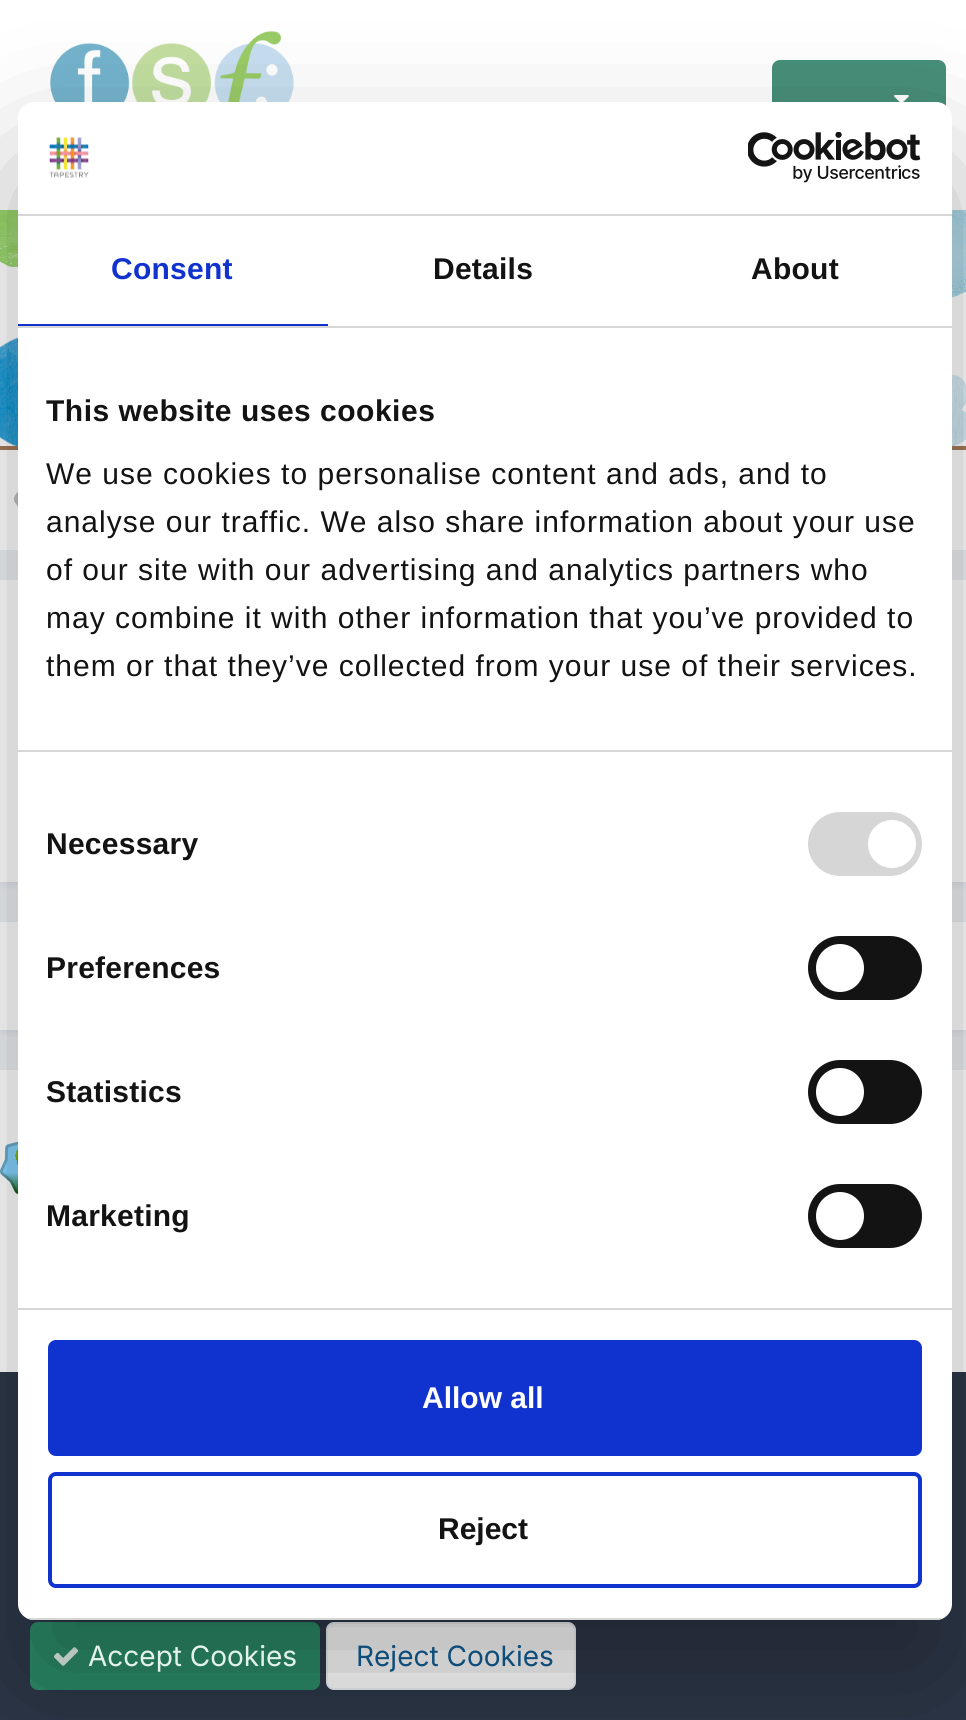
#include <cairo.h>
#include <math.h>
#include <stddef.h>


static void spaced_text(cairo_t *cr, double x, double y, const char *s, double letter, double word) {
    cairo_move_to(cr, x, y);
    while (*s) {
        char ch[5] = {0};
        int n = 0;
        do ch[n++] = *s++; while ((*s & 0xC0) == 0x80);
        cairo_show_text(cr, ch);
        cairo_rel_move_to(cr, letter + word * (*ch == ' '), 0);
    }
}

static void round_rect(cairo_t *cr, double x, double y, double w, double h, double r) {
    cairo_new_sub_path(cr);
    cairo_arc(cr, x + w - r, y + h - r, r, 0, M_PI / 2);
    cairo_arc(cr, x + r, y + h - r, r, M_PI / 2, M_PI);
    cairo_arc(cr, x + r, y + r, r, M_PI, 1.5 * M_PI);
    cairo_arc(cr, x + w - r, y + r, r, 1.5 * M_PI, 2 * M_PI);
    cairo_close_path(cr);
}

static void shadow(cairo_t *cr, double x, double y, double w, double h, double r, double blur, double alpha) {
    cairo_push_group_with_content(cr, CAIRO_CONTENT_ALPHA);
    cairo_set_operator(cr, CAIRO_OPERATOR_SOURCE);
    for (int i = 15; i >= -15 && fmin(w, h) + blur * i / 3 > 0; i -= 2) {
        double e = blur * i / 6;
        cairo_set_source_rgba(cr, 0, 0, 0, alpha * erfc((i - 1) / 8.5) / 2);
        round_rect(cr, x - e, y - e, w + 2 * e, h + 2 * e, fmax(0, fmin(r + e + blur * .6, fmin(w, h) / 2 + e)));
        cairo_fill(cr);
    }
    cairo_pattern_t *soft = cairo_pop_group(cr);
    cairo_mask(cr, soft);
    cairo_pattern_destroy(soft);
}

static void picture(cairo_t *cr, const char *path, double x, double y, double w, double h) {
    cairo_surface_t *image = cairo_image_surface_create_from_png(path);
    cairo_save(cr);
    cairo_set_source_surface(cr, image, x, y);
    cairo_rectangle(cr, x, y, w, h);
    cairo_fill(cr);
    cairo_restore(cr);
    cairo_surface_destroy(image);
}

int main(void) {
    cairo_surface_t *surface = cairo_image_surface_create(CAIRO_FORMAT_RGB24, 966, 1720);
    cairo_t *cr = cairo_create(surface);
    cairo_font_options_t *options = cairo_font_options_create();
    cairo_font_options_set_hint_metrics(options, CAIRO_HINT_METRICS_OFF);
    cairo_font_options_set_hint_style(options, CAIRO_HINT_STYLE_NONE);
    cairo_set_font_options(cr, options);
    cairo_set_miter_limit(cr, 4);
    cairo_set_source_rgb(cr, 0.929, 0.941, 0.957);
    cairo_paint(cr);
    cairo_set_source_rgb(cr, 1, 1, 1);
    cairo_rectangle(cr, 0, 0, 966, 210);
    cairo_fill(cr);
    picture(cr, "img1.png", 50, 31, 244, 71);
    cairo_set_source_rgb(cr, 0.278, 0.561, 0.475);
    round_rect(cr, 772, 60, 174, 78, 8);
    cairo_fill(cr);
    picture(cr, "img2.png", 894, 95, 15, 7);
    picture(cr, "img3.png", 0, 210, 966, 236);
    cairo_set_source_rgb(cr, 0.643, 0.475, 0.337);
    cairo_rectangle(cr, 0, 446, 966, 4);
    cairo_fill(cr);
    cairo_set_source_rgb(cr, 1, 1, 1);
    cairo_rectangle(cr, 0, 450, 966, 100);
    cairo_fill(cr);
    cairo_set_source_rgb(cr, 0.749, 0.749, 0.749);
    cairo_new_path(cr);
    cairo_move_to(cr, 40, 499);
    cairo_line_to(cr, 40, 529);
    cairo_curve_to(cr, 36.5, 529, 33, 527, 30, 524);
    cairo_line_to(cr, 15, 502.5);
    cairo_curve_to(cr, 14.5, 501.5, 14, 500.5, 14, 499);
    cairo_close_path(cr);
    cairo_move_to(cr, 40, 499);
    cairo_line_to(cr, 14, 499);
    cairo_curve_to(cr, 14, 497.5, 14.5, 496.5, 15, 495.5);
    cairo_line_to(cr, 30, 474);
    cairo_curve_to(cr, 33, 471, 36.5, 469, 40, 469);
    cairo_close_path(cr);
    cairo_fill(cr);
    cairo_set_source_rgb(cr, 0.176, 0.216, 0.282);
    shadow(cr, 2, 586, 962, 298, 0, 4, 0.1);
    cairo_set_source_rgb(cr, 1, 1, 1);
    cairo_rectangle(cr, 0, 580, 966, 302);
    cairo_fill(cr);
    cairo_set_source_rgb(cr, 0.176, 0.216, 0.282);
    shadow(cr, 2, 928, 962, 104, 0, 4, 0.1);
    cairo_set_source_rgb(cr, 1, 1, 1);
    cairo_rectangle(cr, 0, 922, 966, 108);
    cairo_fill(cr);
    cairo_rectangle(cr, 0, 1070, 966, 302);
    cairo_fill(cr);
    picture(cr, "img6.png", 0, 1135, 18, 59);
    cairo_set_source_rgb(cr, 0.176, 0.216, 0.282);
    cairo_rectangle(cr, 0, 1372, 966, 348);
    cairo_fill(cr);
    cairo_set_source_rgb(cr, 0.173, 0.549, 0.412);
    round_rect(cr, 30, 1622, 290, 68, 8);
    cairo_fill(cr);
    picture(cr, "img7.png", 53, 1647, 26, 19);
    cairo_set_source_rgb(cr, 1, 1, 1);
    round_rect(cr, 326, 1622, 250, 68, 8);
    cairo_fill(cr);
    round_rect(cr, 327, 1623, 248, 66, 7);
    cairo_set_source_rgba(cr, 0.055, 0.298, 0.475, 0.07);
    cairo_stroke(cr);
    cairo_set_source_rgb(cr, 0, 0, 0);
    shadow(cr, 18, 166, 934, 1518, 16, 68, 0.3);
    cairo_set_source_rgb(cr, 1, 1, 1);
    round_rect(cr, 18, 102, 934, 1518, 16);
    cairo_fill(cr);
    cairo_set_source_rgb(cr, 0.839, 0.839, 0.839);
    cairo_rectangle(cr, 18, 214, 934, 2);
    cairo_fill(cr);
    picture(cr, "img4.png", 49, 137, 40, 41);
    picture(cr, "img5.png", 748, 132, 173, 51);
    cairo_rectangle(cr, 18, 326, 934, 2);
    cairo_fill(cr);
    cairo_set_source_rgb(cr, 0.063, 0.196, 0.812);
    cairo_rectangle(cr, 18, 324, 310, 2);
    cairo_fill(cr);
    cairo_select_font_face(cr, "Liberation Sans", CAIRO_FONT_SLANT_NORMAL, CAIRO_FONT_WEIGHT_BOLD);
    cairo_set_font_size(cr, 30);
    spaced_text(cr, 111, 279, "Consent", 0.25, 0);
    cairo_set_source_rgb(cr, 0.078, 0.078, 0.078);
    spaced_text(cr, 433, 279, "Details", 0.25, 0);
    spaced_text(cr, 751, 279, "About", 0.25, 0);
    cairo_set_source_rgb(cr, 0.839, 0.839, 0.839);
    cairo_rectangle(cr, 18, 750, 934, 2);
    cairo_fill(cr);
    cairo_set_source_rgb(cr, 0.078, 0.078, 0.078);
    spaced_text(cr, 46, 421, "This website uses cookies", 0.5, 0);
    cairo_select_font_face(cr, "Liberation Sans", CAIRO_FONT_SLANT_NORMAL, CAIRO_FONT_WEIGHT_NORMAL);
    spaced_text(cr, 46, 484, "We use cookies to personalise content and ads, and to", 1, 0);
    spaced_text(cr, 46, 532, "analyse our traffic. We also share information about your use", 1, 0);
    spaced_text(cr, 46, 580, "of our site with our advertising and analytics partners who", 1, 0);
    spaced_text(cr, 46, 628, "may combine it with other information that you’ve provided to", 1, 0);
    spaced_text(cr, 46, 676, "them or that they’ve collected from your use of their services.", 1, 0);
    cairo_set_source_rgb(cr, 0.839, 0.839, 0.839);
    cairo_rectangle(cr, 18, 1308, 934, 2);
    cairo_fill(cr);
    cairo_select_font_face(cr, "Liberation Sans", CAIRO_FONT_SLANT_NORMAL, CAIRO_FONT_WEIGHT_BOLD);
    cairo_set_source_rgb(cr, 0.078, 0.078, 0.078);
    spaced_text(cr, 46, 854, "Necessary", 0.25, 0);
    cairo_set_source_rgb(cr, 0.839, 0.839, 0.839);
    round_rect(cr, 808, 812, 114, 64, 32);
    cairo_fill(cr);
    cairo_set_source_rgb(cr, 1, 1, 1);
    cairo_arc(cr, 892, 844, 24, 0, 2 * M_PI);
    cairo_fill(cr);
    cairo_set_source_rgb(cr, 0.078, 0.078, 0.078);
    spaced_text(cr, 46, 978, "Preferences", 0.25, 0);
    round_rect(cr, 808, 936, 114, 64, 32);
    cairo_fill(cr);
    cairo_set_source_rgb(cr, 1, 1, 1);
    cairo_arc(cr, 840, 968, 24, 0, 2 * M_PI);
    cairo_fill(cr);
    cairo_set_source_rgb(cr, 0.078, 0.078, 0.078);
    spaced_text(cr, 46, 1102, "Statistics", 0.25, 0);
    round_rect(cr, 808, 1060, 114, 64, 32);
    cairo_fill(cr);
    cairo_set_source_rgb(cr, 1, 1, 1);
    cairo_arc(cr, 840, 1092, 24, 0, 2 * M_PI);
    cairo_fill(cr);
    cairo_set_source_rgb(cr, 0.078, 0.078, 0.078);
    spaced_text(cr, 46, 1226, "Marketing", 0.25, 0);
    round_rect(cr, 808, 1184, 114, 64, 32);
    cairo_fill(cr);
    cairo_set_source_rgb(cr, 1, 1, 1);
    cairo_arc(cr, 840, 1216, 24, 0, 2 * M_PI);
    cairo_fill(cr);
    cairo_save(cr);
    round_rect(cr, 18, 102, 934, 1518, 16);
    cairo_clip(cr);
    cairo_set_source_rgb(cr, 0.839, 0.839, 0.839);
    cairo_rectangle(cr, 18, 1618, 934, 2);
    cairo_fill(cr);
    cairo_restore(cr);
    cairo_set_source_rgb(cr, 0.063, 0.196, 0.812);
    round_rect(cr, 50, 1342, 870, 112, 6);
    cairo_fill_preserve(cr);
    cairo_set_line_width(cr, 4);
    cairo_stroke(cr);
    cairo_set_source_rgb(cr, 1, 1, 1);
    cairo_move_to(cr, 422, 1408);
    cairo_show_text(cr, "Allow all");
    round_rect(cr, 50, 1474, 870, 112, 6);
    cairo_set_source_rgb(cr, 0.063, 0.196, 0.812);
    cairo_stroke(cr);
    cairo_set_source_rgb(cr, 0.078, 0.078, 0.078);
    cairo_move_to(cr, 438, 1539);
    cairo_show_text(cr, "Reject");
    cairo_select_font_face(cr, "Inter", CAIRO_FONT_SLANT_NORMAL, CAIRO_FONT_WEIGHT_NORMAL);
    cairo_set_font_size(cr, 28);
    cairo_set_source_rgb(cr, 0.89, 0.953, 0.925);
    cairo_move_to(cr, 88, 1666);
    cairo_show_text(cr, "Accept Cookies");
    cairo_set_source_rgb(cr, 0.055, 0.298, 0.475);
    cairo_move_to(cr, 356, 1666);
    cairo_show_text(cr, "Reject Cookies");
    cairo_surface_write_to_png(surface, "page.png");
    cairo_font_options_destroy(options);
    cairo_destroy(cr);
    cairo_surface_destroy(surface);
    return 0;
}
